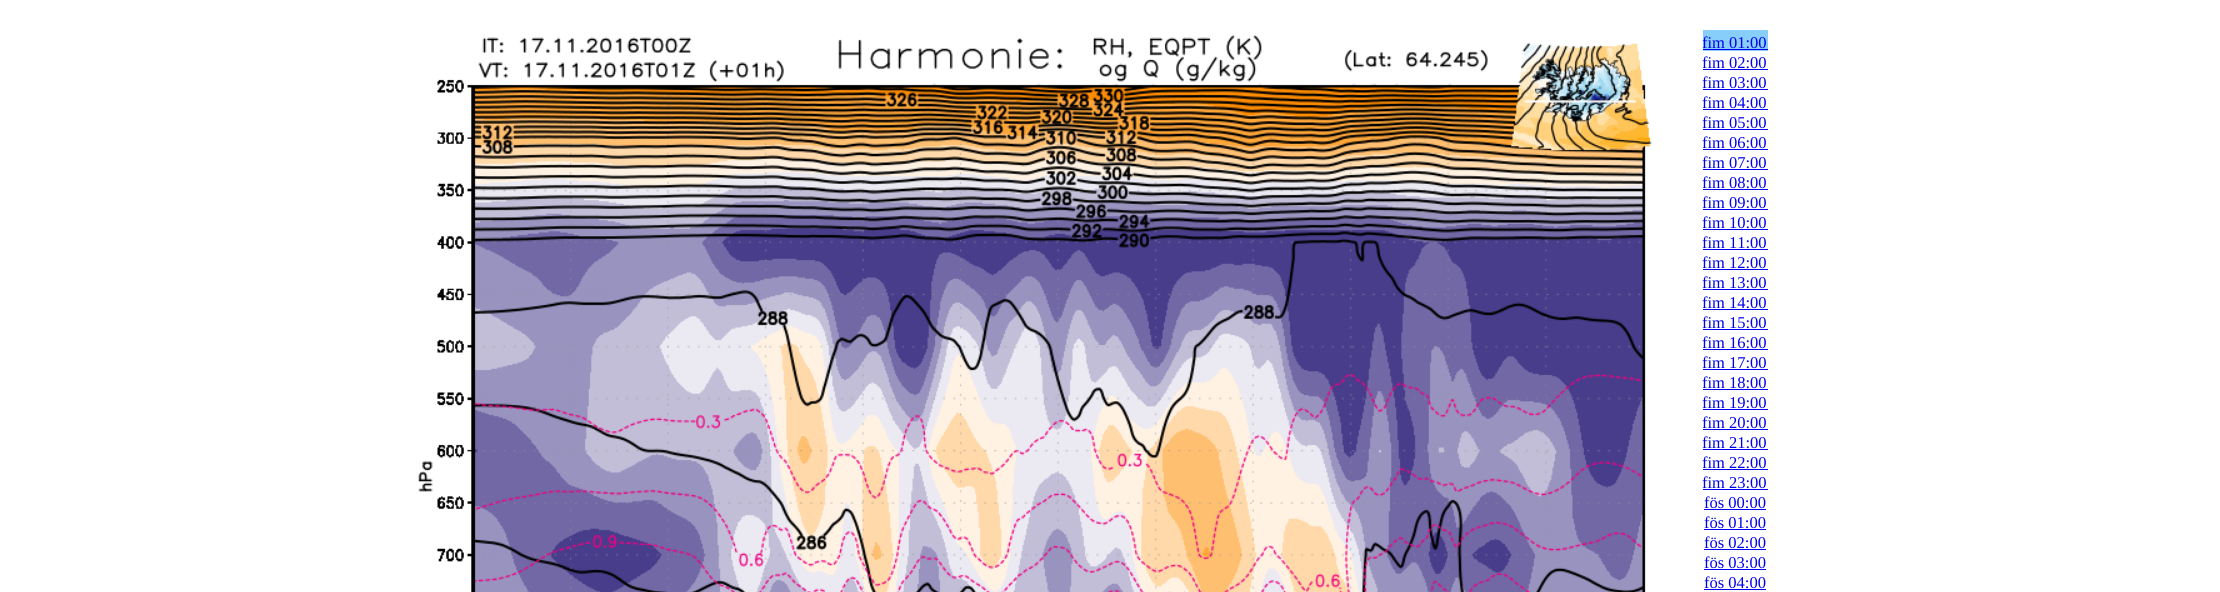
#include <cairo.h>
#include <math.h>
#include <stddef.h>


static void picture(cairo_t *cr, const char *path, double x, double y, double w, double h) {
    cairo_surface_t *image = cairo_image_surface_create_from_png(path);
    cairo_save(cr);
    cairo_set_source_surface(cr, image, x, y);
    cairo_rectangle(cr, x, y, w, h);
    cairo_fill(cr);
    cairo_restore(cr);
    cairo_surface_destroy(image);
}

int main(void) {
    cairo_surface_t *surface = cairo_image_surface_create(CAIRO_FORMAT_RGB24, 2220, 592);
    cairo_t *cr = cairo_create(surface);
    cairo_font_options_t *options = cairo_font_options_create();
    cairo_font_options_set_hint_metrics(options, CAIRO_HINT_METRICS_OFF);
    cairo_font_options_set_hint_style(options, CAIRO_HINT_STYLE_NONE);
    cairo_set_font_options(cr, options);
    cairo_set_miter_limit(cr, 4);
    cairo_set_source_rgb(cr, 1, 1, 1);
    cairo_paint(cr);
    picture(cr, "img1.png", 418, 35, 1234, 557);
    cairo_set_source_rgb(cr, 0.529, 0.808, 0.98);
    cairo_rectangle(cr, 1703, 30, 65, 21);
    cairo_fill(cr);
    cairo_select_font_face(cr, "Liberation Serif", CAIRO_FONT_SLANT_NORMAL, CAIRO_FONT_WEIGHT_NORMAL);
    cairo_set_font_size(cr, 16.5);
    cairo_set_source_rgb(cr, 0, 0, 0.933);
    cairo_move_to(cr, 1702, 48);
    cairo_show_text(cr, "fim 01:00");
    cairo_rectangle(cr, 1703, 49, 65, 1);
    cairo_fill(cr);
    cairo_move_to(cr, 1702, 68);
    cairo_show_text(cr, "fim 02:00");
    cairo_rectangle(cr, 1703, 69, 65, 1);
    cairo_fill(cr);
    cairo_move_to(cr, 1702, 88);
    cairo_show_text(cr, "fim 03:00");
    cairo_rectangle(cr, 1703, 89, 65, 1);
    cairo_fill(cr);
    cairo_move_to(cr, 1702, 108);
    cairo_show_text(cr, "fim 04:00");
    cairo_rectangle(cr, 1703, 109, 65, 1);
    cairo_fill(cr);
    cairo_move_to(cr, 1702, 128);
    cairo_show_text(cr, "fim 05:00");
    cairo_rectangle(cr, 1703, 129, 65, 1);
    cairo_fill(cr);
    cairo_move_to(cr, 1702, 148);
    cairo_show_text(cr, "fim 06:00");
    cairo_rectangle(cr, 1703, 149, 65, 1);
    cairo_fill(cr);
    cairo_move_to(cr, 1702, 168);
    cairo_show_text(cr, "fim 07:00");
    cairo_rectangle(cr, 1703, 169, 65, 1);
    cairo_fill(cr);
    cairo_move_to(cr, 1702, 188);
    cairo_show_text(cr, "fim 08:00");
    cairo_rectangle(cr, 1703, 189, 65, 1);
    cairo_fill(cr);
    cairo_move_to(cr, 1702, 208);
    cairo_show_text(cr, "fim 09:00");
    cairo_rectangle(cr, 1703, 209, 65, 1);
    cairo_fill(cr);
    cairo_move_to(cr, 1702, 228);
    cairo_show_text(cr, "fim 10:00");
    cairo_rectangle(cr, 1703, 229, 65, 1);
    cairo_fill(cr);
    cairo_move_to(cr, 1702, 248);
    cairo_show_text(cr, "fim 11:00");
    cairo_rectangle(cr, 1703, 249, 65, 1);
    cairo_fill(cr);
    cairo_move_to(cr, 1702, 268);
    cairo_show_text(cr, "fim 12:00");
    cairo_rectangle(cr, 1703, 269, 65, 1);
    cairo_fill(cr);
    cairo_move_to(cr, 1702, 288);
    cairo_show_text(cr, "fim 13:00");
    cairo_rectangle(cr, 1703, 289, 65, 1);
    cairo_fill(cr);
    cairo_move_to(cr, 1702, 308);
    cairo_show_text(cr, "fim 14:00");
    cairo_rectangle(cr, 1703, 309, 65, 1);
    cairo_fill(cr);
    cairo_move_to(cr, 1702, 328);
    cairo_show_text(cr, "fim 15:00");
    cairo_rectangle(cr, 1703, 329, 65, 1);
    cairo_fill(cr);
    cairo_move_to(cr, 1702, 348);
    cairo_show_text(cr, "fim 16:00");
    cairo_rectangle(cr, 1703, 349, 65, 1);
    cairo_fill(cr);
    cairo_move_to(cr, 1702, 368);
    cairo_show_text(cr, "fim 17:00");
    cairo_rectangle(cr, 1703, 369, 65, 1);
    cairo_fill(cr);
    cairo_move_to(cr, 1702, 388);
    cairo_show_text(cr, "fim 18:00");
    cairo_rectangle(cr, 1703, 389, 65, 1);
    cairo_fill(cr);
    cairo_move_to(cr, 1702, 408);
    cairo_show_text(cr, "fim 19:00");
    cairo_rectangle(cr, 1703, 409, 65, 1);
    cairo_fill(cr);
    cairo_move_to(cr, 1702, 428);
    cairo_show_text(cr, "fim 20:00");
    cairo_rectangle(cr, 1703, 429, 65, 1);
    cairo_fill(cr);
    cairo_move_to(cr, 1702, 448);
    cairo_show_text(cr, "fim 21:00");
    cairo_rectangle(cr, 1703, 449, 65, 1);
    cairo_fill(cr);
    cairo_move_to(cr, 1702, 468);
    cairo_show_text(cr, "fim 22:00");
    cairo_rectangle(cr, 1703, 469, 65, 1);
    cairo_fill(cr);
    cairo_move_to(cr, 1702, 488);
    cairo_show_text(cr, "fim 23:00");
    cairo_rectangle(cr, 1703, 489, 65, 1);
    cairo_fill(cr);
    cairo_move_to(cr, 1704, 508);
    cairo_show_text(cr, "fös 00:00");
    cairo_rectangle(cr, 1704, 509, 62, 1);
    cairo_fill(cr);
    cairo_move_to(cr, 1704, 528);
    cairo_show_text(cr, "fös 01:00");
    cairo_rectangle(cr, 1704, 529, 62, 1);
    cairo_fill(cr);
    cairo_move_to(cr, 1704, 548);
    cairo_show_text(cr, "fös 02:00");
    cairo_rectangle(cr, 1704, 549, 62, 1);
    cairo_fill(cr);
    cairo_move_to(cr, 1704, 568);
    cairo_show_text(cr, "fös 03:00");
    cairo_rectangle(cr, 1704, 569, 62, 1);
    cairo_fill(cr);
    cairo_move_to(cr, 1704, 588);
    cairo_show_text(cr, "fös 04:00");
    cairo_rectangle(cr, 1704, 589, 62, 1);
    cairo_fill(cr);
    cairo_surface_write_to_png(surface, "page.png");
    cairo_font_options_destroy(options);
    cairo_destroy(cr);
    cairo_surface_destroy(surface);
    return 0;
}
